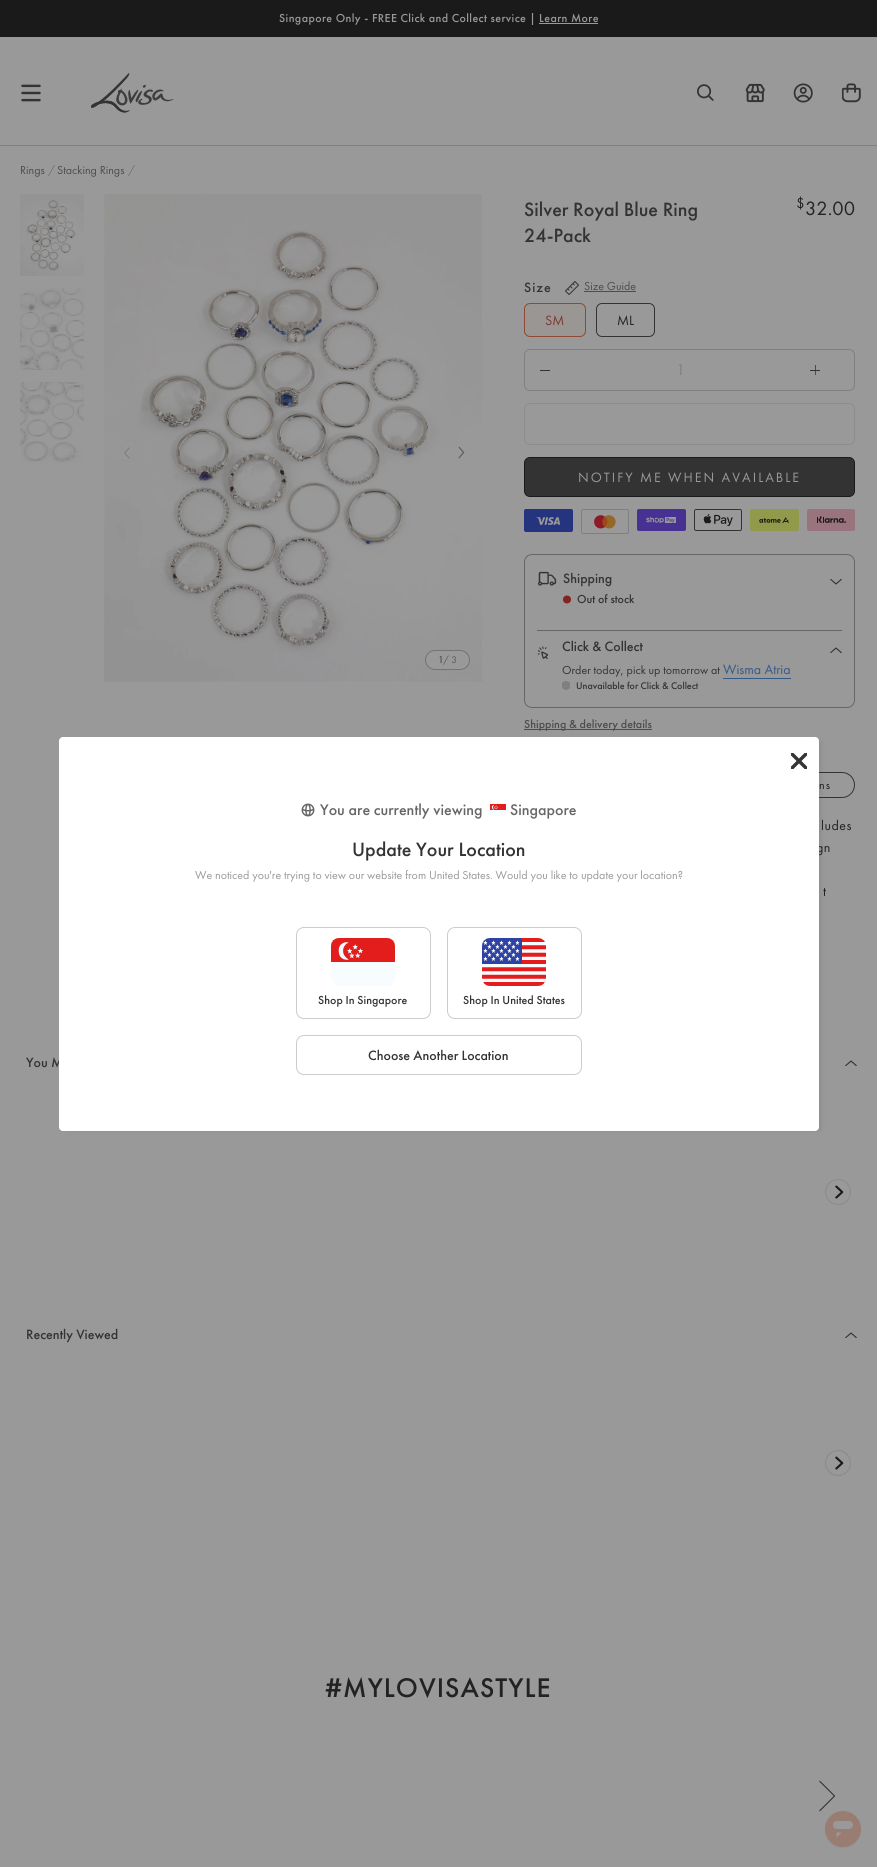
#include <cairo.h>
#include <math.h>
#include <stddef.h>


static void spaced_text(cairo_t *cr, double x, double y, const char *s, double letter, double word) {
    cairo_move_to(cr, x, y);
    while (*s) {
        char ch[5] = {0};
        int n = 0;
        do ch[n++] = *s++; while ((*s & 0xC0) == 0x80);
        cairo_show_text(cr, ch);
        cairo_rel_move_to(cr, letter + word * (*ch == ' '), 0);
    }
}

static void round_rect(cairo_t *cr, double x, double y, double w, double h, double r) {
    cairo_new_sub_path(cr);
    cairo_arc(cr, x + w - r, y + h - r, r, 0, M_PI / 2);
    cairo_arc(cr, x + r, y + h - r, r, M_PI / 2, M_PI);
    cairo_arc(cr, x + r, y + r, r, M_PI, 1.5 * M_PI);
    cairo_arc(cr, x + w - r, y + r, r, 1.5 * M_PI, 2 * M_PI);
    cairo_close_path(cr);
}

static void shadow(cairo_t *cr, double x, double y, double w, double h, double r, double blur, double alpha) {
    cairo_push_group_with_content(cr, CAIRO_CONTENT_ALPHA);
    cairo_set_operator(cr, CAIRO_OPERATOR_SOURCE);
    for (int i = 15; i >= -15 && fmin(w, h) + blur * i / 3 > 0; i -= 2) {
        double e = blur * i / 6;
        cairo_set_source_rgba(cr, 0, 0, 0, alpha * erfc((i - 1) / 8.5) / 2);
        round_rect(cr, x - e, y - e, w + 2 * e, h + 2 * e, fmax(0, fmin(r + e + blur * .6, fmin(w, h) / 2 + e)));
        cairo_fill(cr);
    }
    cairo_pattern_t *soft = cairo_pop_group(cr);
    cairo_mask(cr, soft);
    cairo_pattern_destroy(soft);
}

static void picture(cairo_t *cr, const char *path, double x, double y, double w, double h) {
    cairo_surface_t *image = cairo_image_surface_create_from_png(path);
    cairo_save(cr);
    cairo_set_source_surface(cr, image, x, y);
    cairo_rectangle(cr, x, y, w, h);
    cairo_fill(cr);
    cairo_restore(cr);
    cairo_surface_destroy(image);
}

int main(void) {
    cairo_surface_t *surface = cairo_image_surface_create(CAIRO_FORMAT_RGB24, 892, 1867);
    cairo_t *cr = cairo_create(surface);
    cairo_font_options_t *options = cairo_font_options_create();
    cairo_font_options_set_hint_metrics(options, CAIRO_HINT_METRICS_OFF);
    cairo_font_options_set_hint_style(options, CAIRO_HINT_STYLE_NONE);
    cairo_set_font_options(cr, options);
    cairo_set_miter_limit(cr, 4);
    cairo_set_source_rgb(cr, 1, 1, 1);
    cairo_paint(cr);
    cairo_set_source_rgb(cr, 0.6, 0.6, 0.6);
    cairo_rectangle(cr, 0, 37, 877, 1830);
    cairo_fill(cr);
    cairo_set_source_rgb(cr, 0.102, 0.102, 0.102);
    cairo_rectangle(cr, 0, 0, 877, 37);
    cairo_fill(cr);
    cairo_select_font_face(cr, "Futura PT Medium", CAIRO_FONT_SLANT_NORMAL, CAIRO_FONT_WEIGHT_NORMAL);
    cairo_set_font_size(cr, 12);
    cairo_set_source_rgb(cr, 0.6, 0.6, 0.6);
    spaced_text(cr, 279, 22, "Singapore Only - FREE Click and Collect service | Learn More", 0.4, 0);
    cairo_rectangle(cr, 539, 23, 59, 1);
    cairo_fill(cr);
    cairo_set_source_rgb(cr, 0.502, 0.502, 0.502);
    cairo_rectangle(cr, 0, 145, 877, 1);
    cairo_fill(cr);
    picture(cr, "img1.png", 21, 84, 20, 18);
    picture(cr, "img2.png", 91, 73, 83, 40);
    picture(cr, "img3.png", 697, 84, 17, 17);
    picture(cr, "img4.png", 745, 83, 20, 20);
    picture(cr, "img5.png", 793, 83, 20, 20);
    picture(cr, "img6.png", 842, 83, 19, 20);
    cairo_select_font_face(cr, "Futura PT", CAIRO_FONT_SLANT_NORMAL, CAIRO_FONT_WEIGHT_NORMAL);
    cairo_set_source_rgb(cr, 0.302, 0.302, 0.302);
    cairo_move_to(cr, 20, 174);
    cairo_show_text(cr, "Rings");
    cairo_set_source_rgb(cr, 0.451, 0.451, 0.451);
    cairo_move_to(cr, 48, 174);
    cairo_show_text(cr, "/");
    cairo_set_source_rgb(cr, 0.302, 0.302, 0.302);
    cairo_move_to(cr, 57, 174);
    cairo_show_text(cr, "Stacking Rings");
    cairo_set_source_rgb(cr, 0.451, 0.451, 0.451);
    cairo_move_to(cr, 128, 174);
    cairo_show_text(cr, "/");
    picture(cr, "img7.png", 20, 194, 64, 82);
    picture(cr, "img8.png", 20, 288, 64, 82);
    picture(cr, "img9.png", 20, 382, 64, 81);
    picture(cr, "img10.png", 104, 194, 378, 488);
    picture(cr, "img11.png", 124, 447, 6, 12);
    picture(cr, "img12.png", 458, 446, 7, 13);
    cairo_set_source_rgb(cr, 0.6, 0.6, 0.6);
    round_rect(cr, 425.5, 650.5, 44, 19, 9.5);
    cairo_fill_preserve(cr);
    cairo_set_source_rgb(cr, 0.451, 0.451, 0.451);
    cairo_set_line_width(cr, 1);
    cairo_stroke(cr);
    cairo_set_font_size(cr, 10);
    cairo_set_source_rgb(cr, 0.2, 0.2, 0.2);
    cairo_move_to(cr, 438, 663);
    cairo_show_text(cr, "1");
    cairo_set_source_rgb(cr, 0.353, 0.353, 0.353);
    cairo_move_to(cr, 443, 663);
    cairo_show_text(cr, "/ 3");
    cairo_select_font_face(cr, "Futura PT Medium", CAIRO_FONT_SLANT_NORMAL, CAIRO_FONT_WEIGHT_NORMAL);
    cairo_set_font_size(cr, 20);
    cairo_set_source_rgb(cr, 0.2, 0.2, 0.2);
    cairo_move_to(cr, 524, 216);
    cairo_show_text(cr, "Silver Royal Blue Ring");
    cairo_move_to(cr, 524, 242);
    cairo_show_text(cr, "24-Pack");
    cairo_select_font_face(cr, "Futura PT", CAIRO_FONT_SLANT_NORMAL, CAIRO_FONT_WEIGHT_NORMAL);
    cairo_set_font_size(cr, 15);
    cairo_set_source_rgb(cr, 0.133, 0.133, 0.133);
    cairo_move_to(cr, 796, 208);
    cairo_show_text(cr, "$");
    cairo_set_font_size(cr, 20);
    cairo_move_to(cr, 805, 215);
    cairo_show_text(cr, "32.00");
    cairo_select_font_face(cr, "Futura PT Medium", CAIRO_FONT_SLANT_NORMAL, CAIRO_FONT_WEIGHT_NORMAL);
    cairo_set_font_size(cr, 14);
    cairo_set_source_rgb(cr, 0.2, 0.2, 0.2);
    spaced_text(cr, 524, 292, "Size", 1, 0);
    picture(cr, "img13.png", 565, 281, 14, 14);
    cairo_select_font_face(cr, "Futura PT", CAIRO_FONT_SLANT_NORMAL, CAIRO_FONT_WEIGHT_NORMAL);
    cairo_set_font_size(cr, 12);
    cairo_set_source_rgb(cr, 0.302, 0.302, 0.302);
    cairo_move_to(cr, 584, 290);
    cairo_show_text(cr, "Size Guide");
    cairo_rectangle(cr, 584, 291, 52, 1);
    cairo_fill(cr);
    cairo_set_source_rgb(cr, 0.6, 0.588, 0.58);
    round_rect(cr, 524.5, 303.5, 61, 33, 5.5);
    cairo_fill_preserve(cr);
    cairo_set_source_rgb(cr, 0.557, 0.294, 0.192);
    cairo_stroke(cr);
    cairo_set_font_size(cr, 14);
    cairo_set_source_rgb(cr, 0.482, 0.227, 0.169);
    cairo_move_to(cr, 545, 325);
    cairo_show_text(cr, "SM");
    round_rect(cr, 596.5, 303.5, 58, 33, 5.5);
    cairo_set_source_rgb(cr, 0.2, 0.2, 0.2);
    cairo_stroke(cr);
    cairo_set_source_rgb(cr, 0.133, 0.133, 0.133);
    cairo_move_to(cr, 617, 325);
    cairo_show_text(cr, "ML");
    round_rect(cr, 524.5, 349.5, 330, 41, 5.5);
    cairo_set_source_rgb(cr, 0.502, 0.502, 0.502);
    cairo_stroke(cr);
    cairo_set_source_rgb(cr, 0.2, 0.2, 0.2);
    cairo_rectangle(cr, 540, 370, 10, 1);
    cairo_fill(cr);
    cairo_set_font_size(cr, 16);
    cairo_set_source_rgb(cr, 0.502, 0.502, 0.502);
    cairo_move_to(cr, 676, 375);
    cairo_show_text(cr, "1");
    cairo_set_source_rgb(cr, 0.294, 0.294, 0.294);
    cairo_rectangle(cr, 815, 365, 1, 10);
    cairo_fill(cr);
    cairo_set_source_rgb(cr, 0.2, 0.2, 0.2);
    cairo_rectangle(cr, 810, 370, 10, 1);
    cairo_fill(cr);
    round_rect(cr, 524.5, 403.5, 330, 41, 5.5);
    cairo_set_source_rgb(cr, 0.553, 0.553, 0.553);
    cairo_stroke(cr);
    cairo_set_source_rgb(cr, 0.2, 0.2, 0.2);
    round_rect(cr, 524.5, 457.5, 330, 39, 5.5);
    cairo_fill_preserve(cr);
    cairo_set_source_rgb(cr, 0.102, 0.102, 0.102);
    cairo_stroke(cr);
    cairo_set_font_size(cr, 14);
    cairo_set_source_rgb(cr, 0.6, 0.6, 0.6);
    spaced_text(cr, 578, 482, "NOTIFY ME WHEN AVAILABLE", 2, 0);
    cairo_set_source_rgb(cr, 0.141, 0.204, 0.498);
    round_rect(cr, 524.5, 509.5, 48, 22, 1.5);
    cairo_fill_preserve(cr);
    cairo_stroke(cr);
    picture(cr, "img14.png", 536, 517, 25, 8);
    round_rect(cr, 581.5, 509.5, 47, 24, 1.5);
    cairo_set_source_rgb(cr, 0.502, 0.502, 0.502);
    cairo_stroke(cr);
    picture(cr, "img15.png", 594, 515, 22, 14);
    cairo_set_source_rgb(cr, 0.278, 0.196, 0.58);
    round_rect(cr, 637.5, 509.5, 48, 21, 1.5);
    cairo_fill_preserve(cr);
    cairo_stroke(cr);
    picture(cr, "img16.png", 646, 517, 30, 6);
    round_rect(cr, 694.5, 509.5, 47, 21, 1.5);
    cairo_set_source_rgb(cr, 0.2, 0.2, 0.2);
    cairo_stroke(cr);
    picture(cr, "img17.png", 703, 514, 30, 12);
    cairo_set_source_rgb(cr, 0.569, 0.6, 0.29);
    round_rect(cr, 750.5, 509.5, 48, 21, 1.5);
    cairo_fill_preserve(cr);
    cairo_stroke(cr);
    picture(cr, "img18.png", 759, 517, 30, 6);
    cairo_set_source_rgb(cr, 0.6, 0.451, 0.49);
    round_rect(cr, 807.5, 509.5, 47, 21, 1.5);
    cairo_fill_preserve(cr);
    cairo_stroke(cr);
    picture(cr, "img19.png", 817, 516, 29, 7);
    round_rect(cr, 524.5, 554.5, 330, 153, 7.5);
    cairo_set_source_rgb(cr, 0.4, 0.4, 0.4);
    cairo_stroke(cr);
    cairo_rectangle(cr, 537, 630, 305, 1);
    cairo_fill(cr);
    picture(cr, "img20.png", 537, 571, 20, 15);
    cairo_select_font_face(cr, "Futura PT Medium", CAIRO_FONT_SLANT_NORMAL, CAIRO_FONT_WEIGHT_NORMAL);
    cairo_set_source_rgb(cr, 0.2, 0.2, 0.2);
    cairo_move_to(cr, 563, 583);
    cairo_show_text(cr, "Shipping");
    cairo_set_source_rgb(cr, 0.514, 0.141, 0.122);
    cairo_new_path(cr);
    cairo_arc(cr, 567, 599.5, 4, 0, 2 * M_PI);
    cairo_fill(cr);
    cairo_set_font_size(cr, 12);
    cairo_set_source_rgb(cr, 0.2, 0.2, 0.2);
    cairo_move_to(cr, 577, 603);
    cairo_show_text(cr, "Out of stock");
    picture(cr, "img21.png", 830, 578, 12, 7);
    picture(cr, "img22.png", 537, 646, 12, 13);
    cairo_set_font_size(cr, 14);
    cairo_move_to(cr, 562, 651);
    cairo_show_text(cr, "Click & Collect");
    cairo_select_font_face(cr, "Futura PT", CAIRO_FONT_SLANT_NORMAL, CAIRO_FONT_WEIGHT_NORMAL);
    cairo_set_font_size(cr, 12);
    cairo_move_to(cr, 562, 674);
    cairo_show_text(cr, "Order today, pick up tomorrow at");
    cairo_set_font_size(cr, 14);
    cairo_set_source_rgb(cr, 0.204, 0.349, 0.529);
    cairo_move_to(cr, 723, 674);
    cairo_show_text(cr, "Wisma Atria");
    cairo_rectangle(cr, 723, 678, 68, 1);
    cairo_fill(cr);
    cairo_set_source_rgb(cr, 0.502, 0.502, 0.502);
    cairo_arc(cr, 566, 685.5, 4, 0, 2 * M_PI);
    cairo_fill(cr);
    cairo_save(cr);
    cairo_rectangle(cr, 562, 681, 8, 9);
    cairo_clip(cr);
    cairo_arc(cr, 566, 685.5, 4, 0, 2 * M_PI);
    cairo_stroke(cr);
    cairo_restore(cr);
    cairo_select_font_face(cr, "Futura PT Medium", CAIRO_FONT_SLANT_NORMAL, CAIRO_FONT_WEIGHT_NORMAL);
    cairo_set_font_size(cr, 10);
    cairo_set_source_rgb(cr, 0.2, 0.2, 0.2);
    cairo_move_to(cr, 576, 689);
    cairo_show_text(cr, "Unavailable for Click & Collect");
    picture(cr, "img23.png", 830, 647, 12, 7);
    cairo_set_source_rgb(cr, 0.302, 0.302, 0.302);
    cairo_rectangle(cr, 524, 729, 128, 1);
    cairo_fill(cr);
    cairo_set_font_size(cr, 12);
    cairo_move_to(cr, 524, 728);
    cairo_show_text(cr, "Shipping & delivery details");
    round_rect(cr, 696.5, 772.5, 158, 25, 12.5);
    cairo_set_source_rgb(cr, 0.2, 0.2, 0.2);
    cairo_stroke(cr);
    cairo_select_font_face(cr, "Futura PT", CAIRO_FONT_SLANT_NORMAL, CAIRO_FONT_WEIGHT_NORMAL);
    cairo_set_source_rgb(cr, 0.133, 0.133, 0.133);
    spaced_text(cr, 819, 789, "ns", 1, 0);
    cairo_set_font_size(cr, 14);
    spaced_text(cr, 821, 830, "ludes", 0.5, 0);
    spaced_text(cr, 816, 852, "gn", 0.5, 0);
    spaced_text(cr, 823, 896, "t", 0.5, 0);
    cairo_select_font_face(cr, "Futura PT Medium", CAIRO_FONT_SLANT_NORMAL, CAIRO_FONT_WEIGHT_NORMAL);
    cairo_set_source_rgb(cr, 0.2, 0.2, 0.2);
    cairo_move_to(cr, 26, 1067);
    cairo_show_text(cr, "You M");
    picture(cr, "img23.png", 845, 1060, 12, 7);
    picture(cr, "img24.png", 825, 1179, 26, 26);
    cairo_move_to(cr, 26, 1339);
    cairo_show_text(cr, "Recently Viewed");
    picture(cr, "img23.png", 845, 1332, 12, 7);
    picture(cr, "img24.png", 825, 1450, 26, 26);
    cairo_set_font_size(cr, 28);
    cairo_set_source_rgb(cr, 0.133, 0.133, 0.133);
    spaced_text(cr, 325, 1697, "#MYLOVISASTYLE", 1, 0);
    cairo_new_path(cr);
    cairo_move_to(cr, 819.5, 1781);
    cairo_line_to(cr, 834.5, 1796);
    cairo_line_to(cr, 819.5, 1811);
    cairo_set_source_rgb(cr, 0.169, 0.169, 0.169);
    cairo_stroke(cr);
    cairo_set_source_rgb(cr, 0.184, 0.184, 0.184);
    shadow(cr, 66, 741, 756, 390, 2, 2, 0.1);
    cairo_set_source_rgb(cr, 1, 1, 1);
    round_rect(cr, 59, 737, 760, 394, 4);
    cairo_fill(cr);
    picture(cr, "img25.png", 791, 753, 16, 16);
    picture(cr, "img26.png", 301, 803, 14, 14);
    cairo_set_font_size(cr, 16);
    cairo_set_source_rgb(cr, 0.4, 0.4, 0.4);
    cairo_move_to(cr, 320, 815);
    cairo_show_text(cr, "You are currently viewing");
    picture(cr, "img27.png", 490, 804, 16, 12);
    cairo_move_to(cr, 510, 815);
    cairo_show_text(cr, "Singapore");
    cairo_set_font_size(cr, 20);
    cairo_set_source_rgb(cr, 0.2, 0.2, 0.2);
    cairo_move_to(cr, 352, 856);
    cairo_show_text(cr, "Update Your Location");
    cairo_select_font_face(cr, "Futura PT", CAIRO_FONT_SLANT_NORMAL, CAIRO_FONT_WEIGHT_NORMAL);
    cairo_set_font_size(cr, 12);
    cairo_set_source_rgb(cr, 0.6, 0.6, 0.6);
    cairo_move_to(cr, 195, 879);
    cairo_show_text(cr, "We noticed you're trying to view our website from United States. Would you like to update your location?");
    round_rect(cr, 296.5, 927.5, 134, 91, 7.5);
    cairo_set_source_rgb(cr, 0.8, 0.8, 0.8);
    cairo_stroke(cr);
    picture(cr, "img28.png", 331, 938, 64, 48);
    cairo_select_font_face(cr, "Futura PT Medium", CAIRO_FONT_SLANT_NORMAL, CAIRO_FONT_WEIGHT_NORMAL);
    cairo_set_source_rgb(cr, 0.2, 0.2, 0.2);
    cairo_move_to(cr, 318, 1004);
    cairo_show_text(cr, "Shop In Singapore");
    round_rect(cr, 447.5, 927.5, 134, 91, 7.5);
    cairo_set_source_rgb(cr, 0.8, 0.8, 0.8);
    cairo_stroke(cr);
    picture(cr, "img29.png", 482, 938, 64, 48);
    cairo_set_source_rgb(cr, 0.2, 0.2, 0.2);
    cairo_move_to(cr, 463, 1004);
    cairo_show_text(cr, "Shop In United States");
    round_rect(cr, 296.5, 1035.5, 285, 39, 7.5);
    cairo_set_source_rgb(cr, 0.8, 0.8, 0.8);
    cairo_stroke(cr);
    cairo_set_font_size(cr, 14);
    cairo_set_source_rgb(cr, 0.2, 0.2, 0.2);
    cairo_move_to(cr, 368, 1060);
    cairo_show_text(cr, "Choose Another Location");
    cairo_set_source_rgb(cr, 0.192, 0.192, 0.192);
    shadow(cr, 826, 1813, 34, 34, 17, 1, 0.2);
    cairo_set_source_rgb(cr, 0.6, 0.49, 0.451);
    cairo_arc(cr, 843, 1829, 18, 0, 2 * M_PI);
    cairo_fill(cr);
    cairo_set_source_rgb(cr, 0.6, 0.6, 0.6);
    round_rect(cr, 833, 1821, 20, 8, 4);
    cairo_fill(cr);
    cairo_new_path(cr);
    cairo_move_to(cr, 836.5, 1837.5);
    cairo_line_to(cr, 836.5, 1832.5);
    cairo_line_to(cr, 841.5, 1832.5);
    cairo_close_path(cr);
    cairo_fill(cr);
    cairo_surface_write_to_png(surface, "page.png");
    cairo_font_options_destroy(options);
    cairo_destroy(cr);
    cairo_surface_destroy(surface);
    return 0;
}
